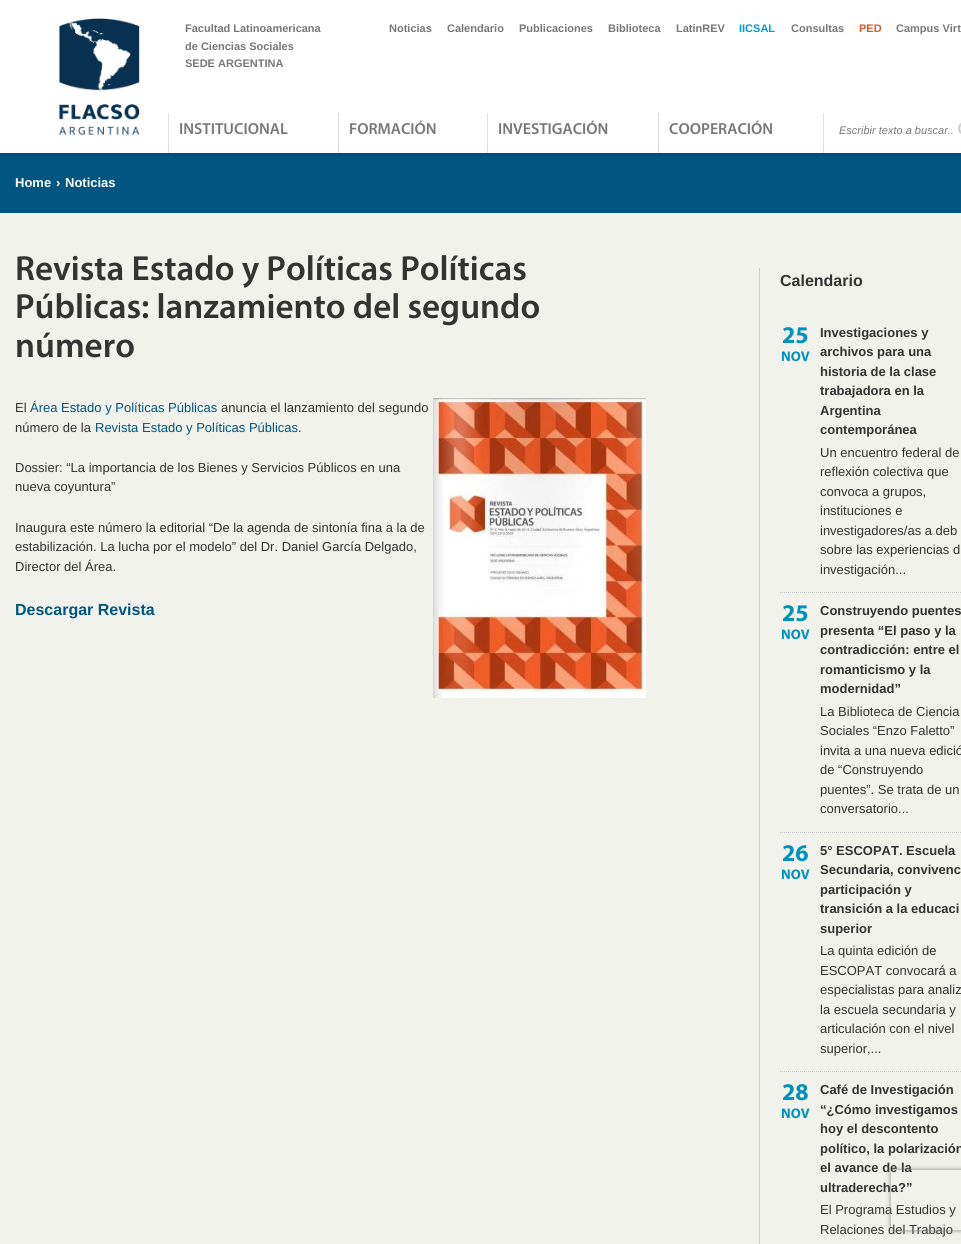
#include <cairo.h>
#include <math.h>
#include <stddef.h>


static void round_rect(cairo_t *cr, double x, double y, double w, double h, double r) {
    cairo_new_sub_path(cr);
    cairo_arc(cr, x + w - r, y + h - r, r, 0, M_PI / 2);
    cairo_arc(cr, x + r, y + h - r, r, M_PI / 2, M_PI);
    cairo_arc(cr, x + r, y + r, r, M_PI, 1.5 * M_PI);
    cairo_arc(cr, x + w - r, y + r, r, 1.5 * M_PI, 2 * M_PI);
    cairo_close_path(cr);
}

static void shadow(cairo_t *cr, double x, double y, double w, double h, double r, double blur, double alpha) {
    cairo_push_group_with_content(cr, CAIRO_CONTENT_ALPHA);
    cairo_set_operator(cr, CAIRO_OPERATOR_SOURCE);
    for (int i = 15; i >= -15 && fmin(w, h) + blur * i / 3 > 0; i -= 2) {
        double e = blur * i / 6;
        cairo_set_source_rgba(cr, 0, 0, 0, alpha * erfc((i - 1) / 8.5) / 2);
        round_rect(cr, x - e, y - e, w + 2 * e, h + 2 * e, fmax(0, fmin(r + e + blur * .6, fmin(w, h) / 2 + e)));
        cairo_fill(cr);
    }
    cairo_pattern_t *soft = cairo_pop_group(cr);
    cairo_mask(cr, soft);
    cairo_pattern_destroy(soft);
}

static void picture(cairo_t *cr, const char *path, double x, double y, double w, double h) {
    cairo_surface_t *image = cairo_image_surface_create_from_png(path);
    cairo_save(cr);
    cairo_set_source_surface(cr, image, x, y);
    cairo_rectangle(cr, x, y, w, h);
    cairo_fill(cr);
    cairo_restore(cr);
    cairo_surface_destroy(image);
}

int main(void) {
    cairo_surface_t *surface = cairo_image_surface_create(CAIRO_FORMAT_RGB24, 961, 1244);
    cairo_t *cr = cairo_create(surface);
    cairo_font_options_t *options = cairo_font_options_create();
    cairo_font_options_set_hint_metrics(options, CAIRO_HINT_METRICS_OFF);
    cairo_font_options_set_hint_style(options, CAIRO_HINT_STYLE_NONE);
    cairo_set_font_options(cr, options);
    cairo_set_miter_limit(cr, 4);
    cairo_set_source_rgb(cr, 0.945, 0.949, 0.925);
    cairo_paint(cr);
    cairo_set_source_rgb(cr, 1, 1, 1);
    cairo_rectangle(cr, 0, 0, 961, 153);
    cairo_fill(cr);
    picture(cr, "img1.png", 58, 18, 82, 117);
    cairo_select_font_face(cr, "Liberation Sans", CAIRO_FONT_SLANT_NORMAL, CAIRO_FONT_WEIGHT_BOLD);
    cairo_set_font_size(cr, 11);
    cairo_set_source_rgb(cr, 0.467, 0.467, 0.467);
    cairo_move_to(cr, 185, 32);
    cairo_show_text(cr, "Facultad Latinoamericana");
    cairo_move_to(cr, 185, 50);
    cairo_show_text(cr, "de Ciencias Sociales");
    cairo_move_to(cr, 185, 67);
    cairo_show_text(cr, "SEDE ARGENTINA");
    cairo_move_to(cr, 389, 32);
    cairo_show_text(cr, "Noticias");
    cairo_move_to(cr, 447, 32);
    cairo_show_text(cr, "Calendario");
    cairo_move_to(cr, 519, 32);
    cairo_show_text(cr, "Publicaciones");
    cairo_move_to(cr, 608, 32);
    cairo_show_text(cr, "Biblioteca");
    cairo_move_to(cr, 676, 32);
    cairo_show_text(cr, "LatinREV");
    cairo_set_source_rgb(cr, 0, 0.604, 0.871);
    cairo_move_to(cr, 739, 32);
    cairo_show_text(cr, "IICSAL");
    cairo_set_source_rgb(cr, 0.467, 0.467, 0.467);
    cairo_move_to(cr, 791, 32);
    cairo_show_text(cr, "Consultas");
    cairo_set_source_rgb(cr, 0.863, 0.345, 0.165);
    cairo_move_to(cr, 859, 32);
    cairo_show_text(cr, "PED");
    cairo_set_source_rgb(cr, 0.467, 0.467, 0.467);
    cairo_move_to(cr, 896, 32);
    cairo_show_text(cr, "Campus Virt");
    cairo_set_source_rgb(cr, 0.871, 0.875, 0.855);
    cairo_rectangle(cr, 168, 113, 1, 40);
    cairo_fill(cr);
    cairo_select_font_face(cr, "myriad SemiBold", CAIRO_FONT_SLANT_NORMAL, CAIRO_FONT_WEIGHT_NORMAL);
    cairo_set_font_size(cr, 16);
    cairo_set_source_rgb(cr, 0.467, 0.467, 0.467);
    cairo_move_to(cr, 179, 134);
    cairo_show_text(cr, "INSTITUCIONAL");
    cairo_set_source_rgb(cr, 0.871, 0.875, 0.855);
    cairo_rectangle(cr, 338, 113, 1, 40);
    cairo_fill(cr);
    cairo_set_source_rgb(cr, 0.467, 0.467, 0.467);
    cairo_move_to(cr, 349, 134);
    cairo_show_text(cr, "FORMACIÓN");
    cairo_set_source_rgb(cr, 0.871, 0.875, 0.855);
    cairo_rectangle(cr, 487, 113, 1, 40);
    cairo_fill(cr);
    cairo_set_source_rgb(cr, 0.467, 0.467, 0.467);
    cairo_move_to(cr, 498, 134);
    cairo_show_text(cr, "INVESTIGACIÓN");
    cairo_set_source_rgb(cr, 0.871, 0.875, 0.855);
    cairo_rectangle(cr, 658, 113, 1, 40);
    cairo_fill(cr);
    cairo_set_source_rgb(cr, 0.467, 0.467, 0.467);
    cairo_move_to(cr, 669, 134);
    cairo_show_text(cr, "COOPERACIÓN");
    cairo_set_source_rgb(cr, 0.871, 0.875, 0.855);
    cairo_rectangle(cr, 823, 113, 1, 40);
    cairo_fill(cr);
    cairo_select_font_face(cr, "Liberation Sans", CAIRO_FONT_SLANT_ITALIC, CAIRO_FONT_WEIGHT_NORMAL);
    cairo_set_font_size(cr, 11);
    cairo_set_source_rgb(cr, 0.467, 0.467, 0.467);
    cairo_move_to(cr, 839, 134);
    cairo_show_text(cr, "Escribir texto a buscar..");
    picture(cr, "img2.png", 958, 123, 3, 11);
    cairo_set_source_rgb(cr, 0, 0.302, 0.459);
    cairo_rectangle(cr, 0, 153, 961, 3);
    cairo_fill(cr);
    cairo_set_source_rgb(cr, 0, 0.333, 0.506);
    cairo_rectangle(cr, 0, 156, 961, 57);
    cairo_fill(cr);
    cairo_select_font_face(cr, "Liberation Sans", CAIRO_FONT_SLANT_NORMAL, CAIRO_FONT_WEIGHT_BOLD);
    cairo_set_font_size(cr, 13);
    cairo_set_source_rgb(cr, 1, 1, 1);
    cairo_move_to(cr, 15, 187);
    cairo_show_text(cr, "Home");
    cairo_move_to(cr, 56, 187);
    cairo_show_text(cr, "›");
    cairo_move_to(cr, 65, 187);
    cairo_show_text(cr, "Noticias");
    cairo_select_font_face(cr, "myriad SemiBold", CAIRO_FONT_SLANT_NORMAL, CAIRO_FONT_WEIGHT_NORMAL);
    cairo_set_font_size(cr, 35);
    cairo_set_source_rgb(cr, 0.2, 0.2, 0.2);
    cairo_move_to(cr, 15, 280);
    cairo_show_text(cr, "Revista Estado y Políticas Políticas");
    cairo_move_to(cr, 15, 318);
    cairo_show_text(cr, "Públicas: lanzamiento del segundo");
    cairo_move_to(cr, 15, 357);
    cairo_show_text(cr, "número");
    cairo_select_font_face(cr, "Liberation Sans", CAIRO_FONT_SLANT_NORMAL, CAIRO_FONT_WEIGHT_NORMAL);
    cairo_set_font_size(cr, 13);
    cairo_move_to(cr, 15, 412);
    cairo_show_text(cr, "El");
    cairo_set_source_rgb(cr, 0, 0.333, 0.506);
    cairo_move_to(cr, 30, 412);
    cairo_show_text(cr, "Área Estado y Políticas Públicas");
    cairo_set_source_rgb(cr, 0.2, 0.2, 0.2);
    cairo_move_to(cr, 221, 412);
    cairo_show_text(cr, "anuncia el lanzamiento del segundo");
    picture(cr, "img3.png", 433, 398, 213, 300);
    cairo_move_to(cr, 15, 432);
    cairo_show_text(cr, "número de la");
    cairo_set_source_rgb(cr, 0, 0.333, 0.506);
    cairo_move_to(cr, 95, 432);
    cairo_show_text(cr, "Revista Estado y Políticas Públicas");
    cairo_set_source_rgb(cr, 0.2, 0.2, 0.2);
    cairo_move_to(cr, 298, 432);
    cairo_show_text(cr, ".");
    cairo_move_to(cr, 15, 472);
    cairo_show_text(cr, "Dossier: “La importancia de los Bienes y Servicios Públicos en una");
    cairo_move_to(cr, 15, 491);
    cairo_show_text(cr, "nueva coyuntura”");
    cairo_move_to(cr, 15, 532);
    cairo_show_text(cr, "Inaugura este número la editorial “De la agenda de sintonía fina a la de");
    cairo_move_to(cr, 15, 551);
    cairo_show_text(cr, "estabilización. La lucha por el modelo” del Dr. Daniel García Delgado,");
    cairo_move_to(cr, 15, 571);
    cairo_show_text(cr, "Director del Área.");
    cairo_select_font_face(cr, "Liberation Sans", CAIRO_FONT_SLANT_NORMAL, CAIRO_FONT_WEIGHT_BOLD);
    cairo_set_font_size(cr, 16);
    cairo_set_source_rgb(cr, 0, 0.333, 0.506);
    cairo_move_to(cr, 15, 615);
    cairo_show_text(cr, "Descargar Revista");
    cairo_set_source_rgb(cr, 0.8, 0.8, 0.8);
    cairo_rectangle(cr, 759, 268, 1, 976);
    cairo_fill(cr);
    cairo_set_source_rgb(cr, 0.2, 0.2, 0.2);
    cairo_move_to(cr, 780, 286);
    cairo_show_text(cr, "Calendario");
    cairo_new_path(cr);
    cairo_move_to(cr, 780, 592.5);
    cairo_line_to(cr, 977, 592.5);
    cairo_set_source_rgb(cr, 0.8, 0.8, 0.8);
    cairo_set_line_width(cr, 1);
    cairo_set_dash(cr, (double[]){1, 1}, 2, 0);
    cairo_stroke(cr);
    cairo_select_font_face(cr, "myriad", CAIRO_FONT_SLANT_NORMAL, CAIRO_FONT_WEIGHT_BOLD);
    cairo_set_font_size(cr, 24);
    cairo_set_source_rgb(cr, 0, 0.573, 0.737);
    cairo_move_to(cr, 782, 343);
    cairo_show_text(cr, "25");
    cairo_set_font_size(cr, 14);
    cairo_move_to(cr, 781, 361);
    cairo_show_text(cr, "NOV");
    cairo_select_font_face(cr, "Liberation Sans", CAIRO_FONT_SLANT_NORMAL, CAIRO_FONT_WEIGHT_BOLD);
    cairo_set_font_size(cr, 13);
    cairo_set_source_rgb(cr, 0.2, 0.2, 0.2);
    cairo_move_to(cr, 820, 337);
    cairo_show_text(cr, "Investigaciones y");
    cairo_move_to(cr, 820, 356);
    cairo_show_text(cr, "archivos para una");
    cairo_move_to(cr, 820, 376);
    cairo_show_text(cr, "historia de la clase");
    cairo_move_to(cr, 820, 395);
    cairo_show_text(cr, "trabajadora en la");
    cairo_move_to(cr, 820, 415);
    cairo_show_text(cr, "Argentina");
    cairo_move_to(cr, 820, 434);
    cairo_show_text(cr, "contemporánea");
    cairo_select_font_face(cr, "Liberation Sans", CAIRO_FONT_SLANT_NORMAL, CAIRO_FONT_WEIGHT_NORMAL);
    cairo_move_to(cr, 820, 457);
    cairo_show_text(cr, "Un encuentro federal de");
    cairo_move_to(cr, 820, 476);
    cairo_show_text(cr, "reflexión colectiva que");
    cairo_move_to(cr, 820, 496);
    cairo_show_text(cr, "convoca a grupos,");
    cairo_move_to(cr, 820, 515);
    cairo_show_text(cr, "instituciones e");
    cairo_move_to(cr, 820, 535);
    cairo_show_text(cr, "investigadores/as a deb");
    cairo_move_to(cr, 820, 554);
    cairo_show_text(cr, "sobre las experiencias d");
    cairo_move_to(cr, 820, 574);
    cairo_show_text(cr, "investigación...");
    cairo_new_path(cr);
    cairo_move_to(cr, 780, 832.5);
    cairo_line_to(cr, 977, 832.5);
    cairo_set_source_rgb(cr, 0.8, 0.8, 0.8);
    cairo_stroke(cr);
    cairo_select_font_face(cr, "myriad", CAIRO_FONT_SLANT_NORMAL, CAIRO_FONT_WEIGHT_BOLD);
    cairo_set_font_size(cr, 24);
    cairo_set_source_rgb(cr, 0, 0.573, 0.737);
    cairo_move_to(cr, 782, 621);
    cairo_show_text(cr, "25");
    cairo_set_font_size(cr, 14);
    cairo_move_to(cr, 781, 639);
    cairo_show_text(cr, "NOV");
    cairo_select_font_face(cr, "Liberation Sans", CAIRO_FONT_SLANT_NORMAL, CAIRO_FONT_WEIGHT_BOLD);
    cairo_set_font_size(cr, 13);
    cairo_set_source_rgb(cr, 0.2, 0.2, 0.2);
    cairo_move_to(cr, 820, 615);
    cairo_show_text(cr, "Construyendo puentes");
    cairo_move_to(cr, 820, 635);
    cairo_show_text(cr, "presenta “El paso y la");
    cairo_move_to(cr, 820, 654);
    cairo_show_text(cr, "contradicción: entre el");
    cairo_move_to(cr, 820, 674);
    cairo_show_text(cr, "romanticismo y la");
    cairo_move_to(cr, 820, 693);
    cairo_show_text(cr, "modernidad”");
    cairo_select_font_face(cr, "Liberation Sans", CAIRO_FONT_SLANT_NORMAL, CAIRO_FONT_WEIGHT_NORMAL);
    cairo_move_to(cr, 820, 716);
    cairo_show_text(cr, "La Biblioteca de Ciencia");
    cairo_move_to(cr, 820, 735);
    cairo_show_text(cr, "Sociales “Enzo Faletto”");
    cairo_move_to(cr, 820, 755);
    cairo_show_text(cr, "invita a una nueva edició");
    cairo_move_to(cr, 820, 774);
    cairo_show_text(cr, "de “Construyendo");
    cairo_move_to(cr, 820, 794);
    cairo_show_text(cr, "puentes”. Se trata de un");
    cairo_move_to(cr, 820, 813);
    cairo_show_text(cr, "conversatorio...");
    cairo_new_path(cr);
    cairo_move_to(cr, 780, 1071.5);
    cairo_line_to(cr, 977, 1071.5);
    cairo_set_source_rgb(cr, 0.8, 0.8, 0.8);
    cairo_stroke(cr);
    cairo_select_font_face(cr, "myriad", CAIRO_FONT_SLANT_NORMAL, CAIRO_FONT_WEIGHT_BOLD);
    cairo_set_font_size(cr, 24);
    cairo_set_source_rgb(cr, 0, 0.573, 0.737);
    cairo_move_to(cr, 782, 861);
    cairo_show_text(cr, "26");
    cairo_set_font_size(cr, 14);
    cairo_move_to(cr, 781, 879);
    cairo_show_text(cr, "NOV");
    cairo_select_font_face(cr, "Liberation Sans", CAIRO_FONT_SLANT_NORMAL, CAIRO_FONT_WEIGHT_BOLD);
    cairo_set_font_size(cr, 13);
    cairo_set_source_rgb(cr, 0.2, 0.2, 0.2);
    cairo_move_to(cr, 820, 855);
    cairo_show_text(cr, "5° ESCOPAT. Escuela");
    cairo_move_to(cr, 820, 874);
    cairo_show_text(cr, "Secundaria, convivenc");
    cairo_move_to(cr, 820, 894);
    cairo_show_text(cr, "participación y");
    cairo_move_to(cr, 820, 913);
    cairo_show_text(cr, "transición a la educaci");
    cairo_move_to(cr, 820, 933);
    cairo_show_text(cr, "superior");
    cairo_select_font_face(cr, "Liberation Sans", CAIRO_FONT_SLANT_NORMAL, CAIRO_FONT_WEIGHT_NORMAL);
    cairo_move_to(cr, 820, 955);
    cairo_show_text(cr, "La quinta edición de");
    cairo_move_to(cr, 820, 975);
    cairo_show_text(cr, "ESCOPAT convocará a");
    cairo_move_to(cr, 820, 994);
    cairo_show_text(cr, "especialistas para analiz");
    cairo_move_to(cr, 820, 1014);
    cairo_show_text(cr, "la escuela secundaria y");
    cairo_move_to(cr, 820, 1033);
    cairo_show_text(cr, "articulación con el nivel");
    cairo_move_to(cr, 820, 1053);
    cairo_show_text(cr, "superior,...");
    cairo_select_font_face(cr, "myriad", CAIRO_FONT_SLANT_NORMAL, CAIRO_FONT_WEIGHT_BOLD);
    cairo_set_font_size(cr, 24);
    cairo_set_source_rgb(cr, 0, 0.573, 0.737);
    cairo_move_to(cr, 782, 1100);
    cairo_show_text(cr, "28");
    cairo_set_font_size(cr, 14);
    cairo_move_to(cr, 781, 1118);
    cairo_show_text(cr, "NOV");
    cairo_select_font_face(cr, "Liberation Sans", CAIRO_FONT_SLANT_NORMAL, CAIRO_FONT_WEIGHT_BOLD);
    cairo_set_font_size(cr, 13);
    cairo_set_source_rgb(cr, 0.2, 0.2, 0.2);
    cairo_move_to(cr, 820, 1094);
    cairo_show_text(cr, "Café de Investigación");
    cairo_move_to(cr, 820, 1114);
    cairo_show_text(cr, "“¿Cómo investigamos");
    cairo_move_to(cr, 820, 1133);
    cairo_show_text(cr, "hoy el descontento");
    cairo_move_to(cr, 820, 1153);
    cairo_show_text(cr, "político, la polarización");
    cairo_move_to(cr, 820, 1172);
    cairo_show_text(cr, "el avance de la");
    cairo_move_to(cr, 820, 1192);
    cairo_show_text(cr, "ultraderecha?”");
    cairo_select_font_face(cr, "Liberation Sans", CAIRO_FONT_SLANT_NORMAL, CAIRO_FONT_WEIGHT_NORMAL);
    cairo_move_to(cr, 820, 1214);
    cairo_show_text(cr, "El Programa Estudios y");
    cairo_move_to(cr, 820, 1234);
    cairo_show_text(cr, "Relaciones del Trabajo");
    cairo_save(cr);
    cairo_set_fill_rule(cr, CAIRO_FILL_RULE_EVEN_ODD);
    cairo_new_path(cr);
    cairo_move_to(cr, 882, 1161);
    cairo_line_to(cr, 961, 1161);
    cairo_line_to(cr, 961, 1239);
    cairo_line_to(cr, 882, 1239);
    cairo_close_path(cr);
    cairo_move_to(cr, 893, 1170);
    cairo_line_to(cr, 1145, 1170);
    cairo_curve_to(cr, 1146, 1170, 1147, 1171, 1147, 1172);
    cairo_line_to(cr, 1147, 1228);
    cairo_curve_to(cr, 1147, 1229, 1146, 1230, 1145, 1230);
    cairo_line_to(cr, 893, 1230);
    cairo_curve_to(cr, 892, 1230, 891, 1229, 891, 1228);
    cairo_line_to(cr, 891, 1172);
    cairo_curve_to(cr, 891, 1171, 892, 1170, 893, 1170);
    cairo_close_path(cr);
    cairo_clip(cr);
    cairo_set_source_rgb(cr, 0.502, 0.502, 0.502);
    shadow(cr, 891, 1170, 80, 60, 2, 2.5, 1);
    cairo_restore(cr);
    cairo_surface_write_to_png(surface, "page.png");
    cairo_font_options_destroy(options);
    cairo_destroy(cr);
    cairo_surface_destroy(surface);
    return 0;
}
